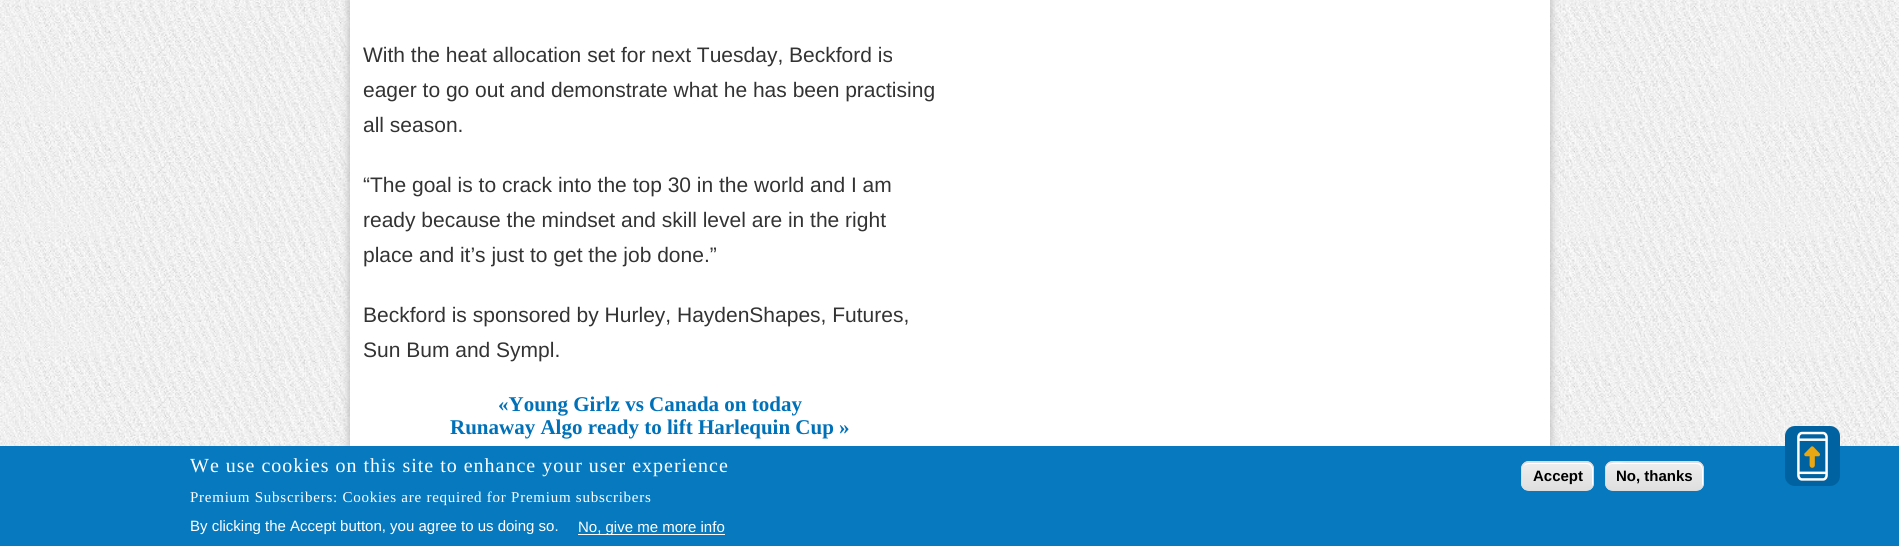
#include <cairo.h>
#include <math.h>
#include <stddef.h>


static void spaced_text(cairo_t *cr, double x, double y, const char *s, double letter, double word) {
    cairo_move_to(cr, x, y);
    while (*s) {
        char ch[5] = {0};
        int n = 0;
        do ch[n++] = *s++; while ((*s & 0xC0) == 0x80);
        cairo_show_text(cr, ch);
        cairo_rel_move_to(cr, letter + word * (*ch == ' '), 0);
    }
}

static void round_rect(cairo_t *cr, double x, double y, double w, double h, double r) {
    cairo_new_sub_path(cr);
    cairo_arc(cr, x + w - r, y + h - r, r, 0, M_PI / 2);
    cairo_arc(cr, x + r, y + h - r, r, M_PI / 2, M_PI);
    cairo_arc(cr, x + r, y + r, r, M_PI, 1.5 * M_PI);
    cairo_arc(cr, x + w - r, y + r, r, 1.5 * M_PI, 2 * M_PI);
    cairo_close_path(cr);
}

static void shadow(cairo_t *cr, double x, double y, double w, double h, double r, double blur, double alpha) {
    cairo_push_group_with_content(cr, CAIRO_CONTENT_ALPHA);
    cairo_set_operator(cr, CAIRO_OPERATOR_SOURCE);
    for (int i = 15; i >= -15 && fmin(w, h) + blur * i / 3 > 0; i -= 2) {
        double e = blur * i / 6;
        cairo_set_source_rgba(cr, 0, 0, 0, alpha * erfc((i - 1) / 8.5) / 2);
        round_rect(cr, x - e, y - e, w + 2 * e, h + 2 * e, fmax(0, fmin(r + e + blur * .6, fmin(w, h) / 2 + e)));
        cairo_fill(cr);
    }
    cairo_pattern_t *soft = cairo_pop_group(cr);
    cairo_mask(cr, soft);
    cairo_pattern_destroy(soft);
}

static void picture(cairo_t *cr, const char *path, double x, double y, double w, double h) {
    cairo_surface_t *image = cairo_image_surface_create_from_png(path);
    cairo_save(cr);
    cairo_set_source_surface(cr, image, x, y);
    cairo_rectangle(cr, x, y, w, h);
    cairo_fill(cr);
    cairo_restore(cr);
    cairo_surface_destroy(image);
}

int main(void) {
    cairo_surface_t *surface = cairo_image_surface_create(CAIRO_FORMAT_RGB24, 1899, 546);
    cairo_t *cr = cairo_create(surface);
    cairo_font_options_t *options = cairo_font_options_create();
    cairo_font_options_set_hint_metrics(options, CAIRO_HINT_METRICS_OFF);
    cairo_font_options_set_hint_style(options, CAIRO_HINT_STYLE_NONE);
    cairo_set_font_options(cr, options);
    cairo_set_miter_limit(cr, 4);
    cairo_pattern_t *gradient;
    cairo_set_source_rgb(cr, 1, 1, 1);
    cairo_paint(cr);
    picture(cr, "img1.png", 0, 0, 1899, 446);
    cairo_set_source_rgb(cr, 0.733, 0.733, 0.733);
    shadow(cr, 349, -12, 1202, 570, 0, 4, 1);
    cairo_set_source_rgb(cr, 1, 1, 1);
    cairo_rectangle(cr, 350, 0, 1200, 446);
    cairo_fill(cr);
    cairo_select_font_face(cr, "Liberation Sans", CAIRO_FONT_SLANT_NORMAL, CAIRO_FONT_WEIGHT_NORMAL);
    cairo_set_font_size(cr, 21);
    cairo_set_source_rgb(cr, 0.2, 0.2, 0.2);
    cairo_move_to(cr, 363, 62);
    cairo_show_text(cr, "With the heat allocation set for next Tuesday, Beckford is");
    cairo_move_to(cr, 363, 97);
    cairo_show_text(cr, "eager to go out and demonstrate what he has been practising");
    cairo_move_to(cr, 363, 132);
    cairo_show_text(cr, "all season.");
    cairo_move_to(cr, 363, 192);
    cairo_show_text(cr, "“The goal is to crack into the top 30 in the world and I am");
    cairo_move_to(cr, 363, 227);
    cairo_show_text(cr, "ready because the mindset and skill level are in the right");
    cairo_move_to(cr, 363, 262);
    cairo_show_text(cr, "place and it’s just to get the job done.”");
    cairo_move_to(cr, 363, 322);
    cairo_show_text(cr, "Beckford is sponsored by Hurley, HaydenShapes, Futures,");
    cairo_move_to(cr, 363, 357);
    cairo_show_text(cr, "Sun Bum and Sympl.");
    cairo_select_font_face(cr, "Liberation Serif", CAIRO_FONT_SLANT_NORMAL, CAIRO_FONT_WEIGHT_BOLD);
    cairo_set_source_rgb(cr, 0, 0.443, 0.722);
    cairo_move_to(cr, 498, 411);
    cairo_show_text(cr, "«Young Girlz vs Canada on today");
    cairo_move_to(cr, 450, 434);
    cairo_show_text(cr, "Runaway Algo ready to lift Harlequin Cup »");
    cairo_set_source_rgb(cr, 0.027, 0.475, 0.749);
    cairo_rectangle(cr, 0, 446, 1899, 100);
    cairo_fill(cr);
    cairo_select_font_face(cr, "Liberation Serif", CAIRO_FONT_SLANT_NORMAL, CAIRO_FONT_WEIGHT_NORMAL);
    cairo_set_font_size(cr, 20);
    cairo_set_source_rgb(cr, 1, 1, 1);
    spaced_text(cr, 190, 472, "We use cookies on this site to enhance your user experience", 1, 0);
    cairo_set_font_size(cr, 15);
    spaced_text(cr, 190, 502, "Premium Subscribers: Cookies are required for Premium subscribers", 0.75, 0);
    cairo_select_font_face(cr, "Liberation Sans", CAIRO_FONT_SLANT_NORMAL, CAIRO_FONT_WEIGHT_NORMAL);
    cairo_move_to(cr, 190, 531);
    cairo_show_text(cr, "By clicking the Accept button, you agree to us doing so.");
    cairo_rectangle(cr, 578, 534, 147, 1);
    cairo_fill(cr);
    cairo_move_to(cr, 578, 532);
    cairo_show_text(cr, "No, give me more info");
    cairo_save(cr);
    round_rect(cr, 1521, 461, 73, 30, 8);
    cairo_clip(cr);
    gradient = cairo_pattern_create_linear(1558, 435, 1558, 463);
    cairo_pattern_add_color_stop_rgba(gradient, 0.05, 0.929, 0.929, 0.929, 1);
    cairo_pattern_add_color_stop_rgba(gradient, 1, 0.875, 0.875, 0.875, 1);
    cairo_set_source(cr, gradient);
    cairo_pattern_destroy(gradient);
    cairo_rectangle(cr, 1521, 461, 73, 2);
    cairo_fill(cr);
    gradient = cairo_pattern_create_linear(1558, 463, 1558, 490);
    cairo_pattern_add_color_stop_rgba(gradient, 0.05, 0.929, 0.929, 0.929, 1);
    cairo_pattern_add_color_stop_rgba(gradient, 1, 0.875, 0.875, 0.875, 1);
    cairo_set_source(cr, gradient);
    cairo_pattern_destroy(gradient);
    cairo_rectangle(cr, 1521, 463, 73, 27);
    cairo_fill(cr);
    cairo_restore(cr);
    cairo_new_path(cr);
    cairo_move_to(cr, 1529, 464);
    cairo_line_to(cr, 1586, 464);
    cairo_curve_to(cr, 1590, 464, 1592, 467, 1592, 470);
    cairo_line_to(cr, 1592, 485);
    cairo_curve_to(cr, 1592, 486, 1592, 487, 1591, 488);
    cairo_curve_to(cr, 1592, 487, 1593, 486, 1593, 484);
    cairo_line_to(cr, 1593, 469);
    cairo_curve_to(cr, 1593, 466, 1590, 463, 1587, 463);
    cairo_line_to(cr, 1529, 463);
    cairo_curve_to(cr, 1527, 463, 1525, 464, 1524, 466);
    cairo_curve_to(cr, 1525, 465, 1527, 464, 1529, 464);
    cairo_close_path(cr);
    cairo_fill(cr);
    round_rect(cr, 1521.5, 461.5, 72, 29, 7.5);
    cairo_set_source_rgb(cr, 0.863, 0.863, 0.863);
    cairo_set_line_width(cr, 1);
    cairo_stroke(cr);
    cairo_select_font_face(cr, "Liberation Sans", CAIRO_FONT_SLANT_NORMAL, CAIRO_FONT_WEIGHT_BOLD);
    cairo_set_source_rgb(cr, 0, 0, 0);
    cairo_move_to(cr, 1533, 481);
    cairo_show_text(cr, "Accept");
    cairo_save(cr);
    round_rect(cr, 1605, 461, 99, 30, 8);
    cairo_clip(cr);
    gradient = cairo_pattern_create_linear(1654, 435, 1654, 463);
    cairo_pattern_add_color_stop_rgba(gradient, 0.05, 0.929, 0.929, 0.929, 1);
    cairo_pattern_add_color_stop_rgba(gradient, 1, 0.875, 0.875, 0.875, 1);
    cairo_set_source(cr, gradient);
    cairo_pattern_destroy(gradient);
    cairo_rectangle(cr, 1605, 461, 99, 2);
    cairo_fill(cr);
    gradient = cairo_pattern_create_linear(1654, 463, 1654, 490);
    cairo_pattern_add_color_stop_rgba(gradient, 0.05, 0.929, 0.929, 0.929, 1);
    cairo_pattern_add_color_stop_rgba(gradient, 1, 0.875, 0.875, 0.875, 1);
    cairo_set_source(cr, gradient);
    cairo_pattern_destroy(gradient);
    cairo_rectangle(cr, 1605, 463, 99, 27);
    cairo_fill(cr);
    cairo_restore(cr);
    cairo_set_source_rgb(cr, 1, 1, 1);
    cairo_new_path(cr);
    cairo_move_to(cr, 1612, 464);
    cairo_line_to(cr, 1696, 464);
    cairo_curve_to(cr, 1700, 464, 1702, 467, 1702, 470);
    cairo_line_to(cr, 1702, 485);
    cairo_curve_to(cr, 1702, 486, 1702, 487, 1701, 488);
    cairo_curve_to(cr, 1704, 486, 1703, 480, 1703, 476);
    cairo_curve_to(cr, 1703, 472, 1704, 463, 1697, 463);
    cairo_line_to(cr, 1626, 463);
    cairo_curve_to(cr, 1620, 463, 1606, 460, 1606, 470);
    cairo_curve_to(cr, 1606, 467, 1609, 464, 1612, 464);
    cairo_close_path(cr);
    cairo_fill(cr);
    round_rect(cr, 1605.5, 461.5, 98, 29, 7.5);
    cairo_set_source_rgb(cr, 0.863, 0.863, 0.863);
    cairo_stroke(cr);
    cairo_set_source_rgb(cr, 0, 0, 0);
    cairo_move_to(cr, 1616, 481);
    cairo_show_text(cr, "No, thanks");
    cairo_set_source_rgb(cr, 0, 0.384, 0.627);
    round_rect(cr, 1785, 426, 55, 60, 10);
    cairo_fill(cr);
    picture(cr, "img2.png", 1797, 431, 31, 50);
    cairo_surface_write_to_png(surface, "page.png");
    cairo_font_options_destroy(options);
    cairo_destroy(cr);
    cairo_surface_destroy(surface);
    return 0;
}
